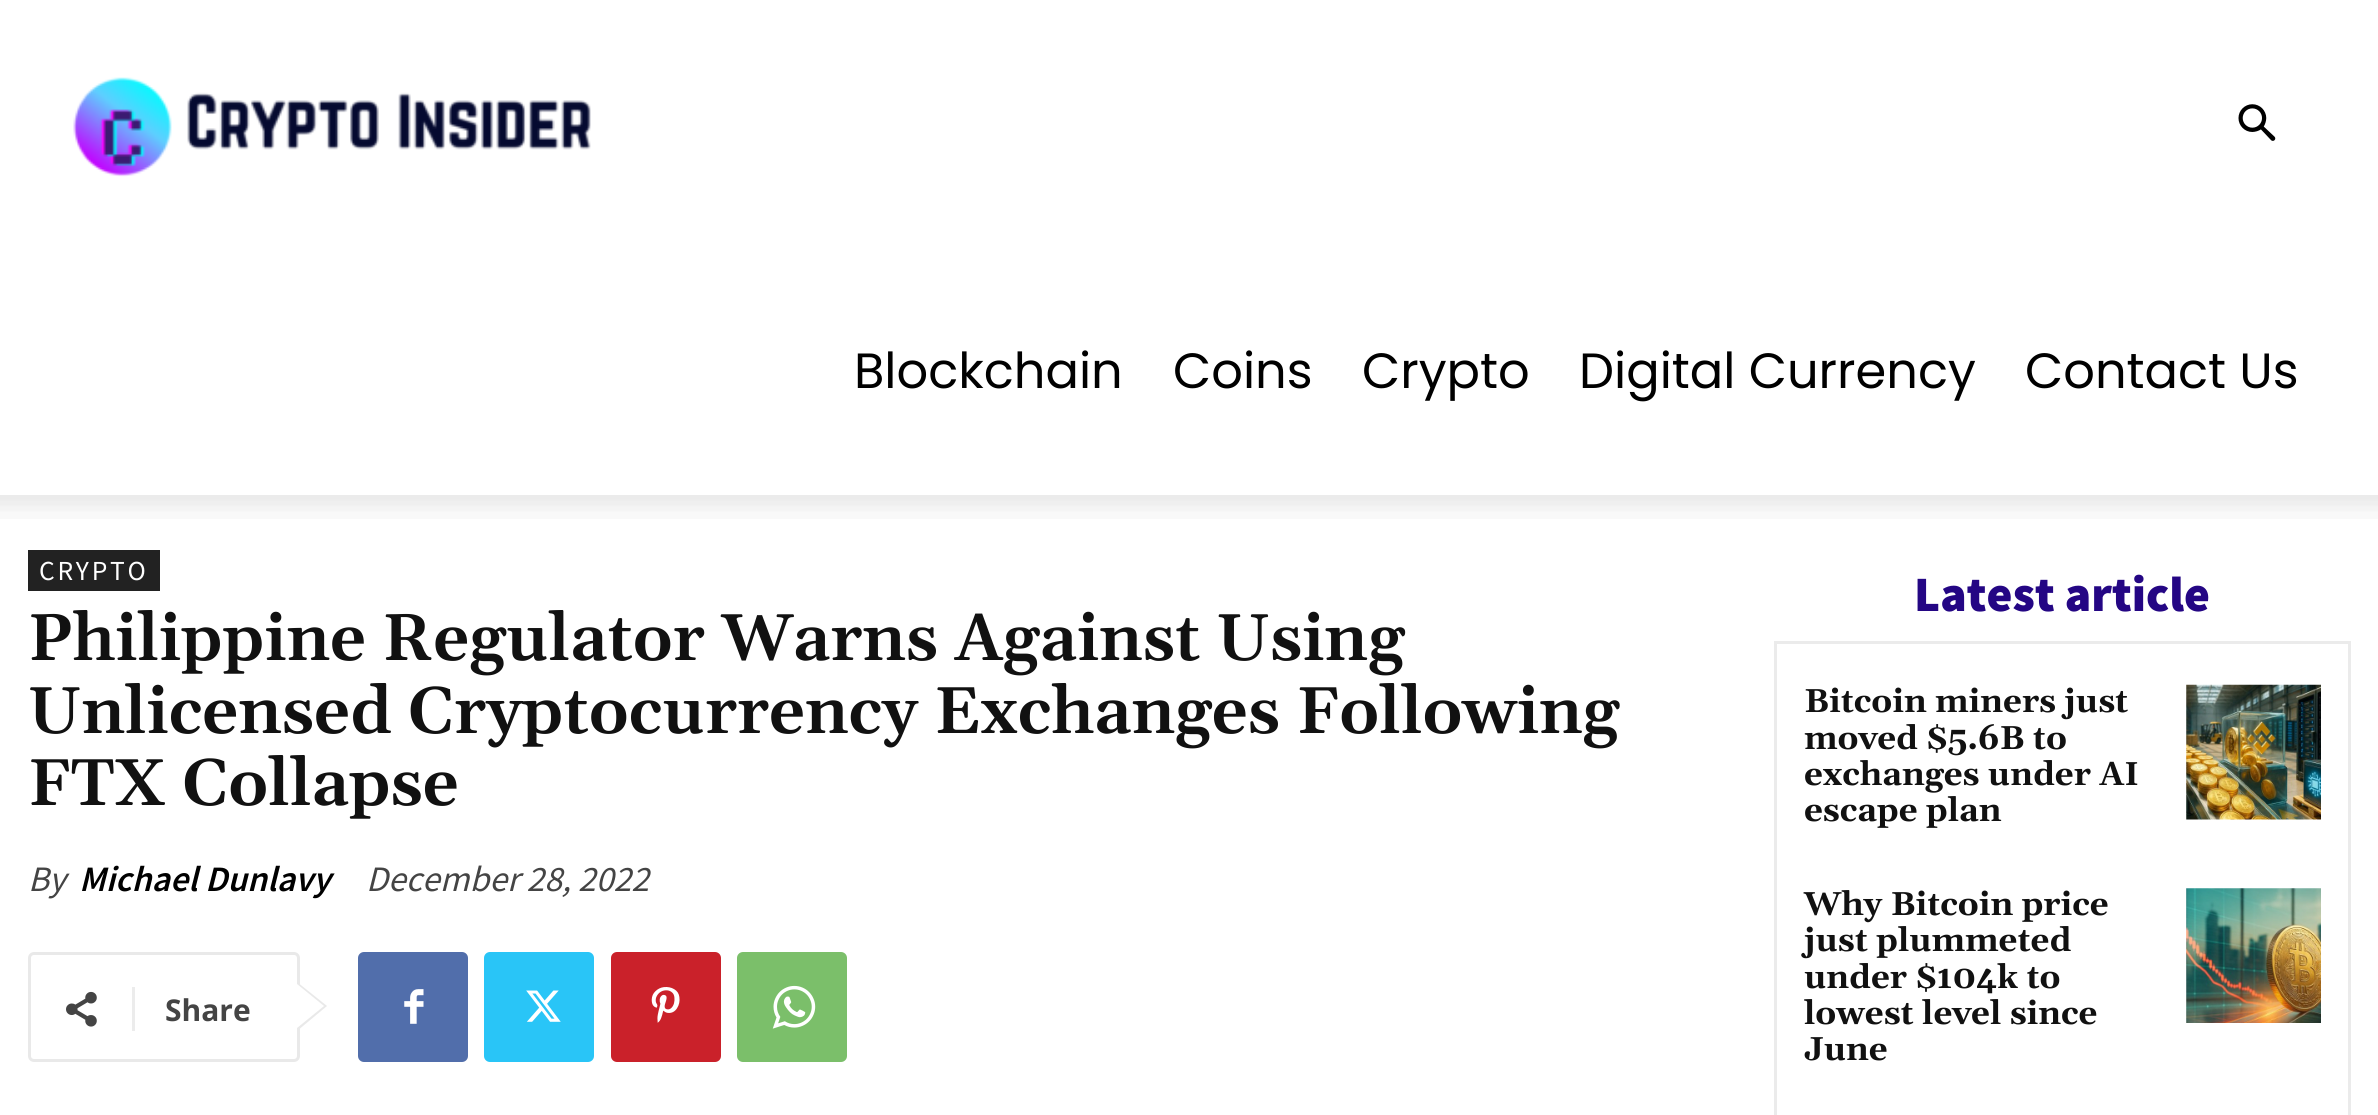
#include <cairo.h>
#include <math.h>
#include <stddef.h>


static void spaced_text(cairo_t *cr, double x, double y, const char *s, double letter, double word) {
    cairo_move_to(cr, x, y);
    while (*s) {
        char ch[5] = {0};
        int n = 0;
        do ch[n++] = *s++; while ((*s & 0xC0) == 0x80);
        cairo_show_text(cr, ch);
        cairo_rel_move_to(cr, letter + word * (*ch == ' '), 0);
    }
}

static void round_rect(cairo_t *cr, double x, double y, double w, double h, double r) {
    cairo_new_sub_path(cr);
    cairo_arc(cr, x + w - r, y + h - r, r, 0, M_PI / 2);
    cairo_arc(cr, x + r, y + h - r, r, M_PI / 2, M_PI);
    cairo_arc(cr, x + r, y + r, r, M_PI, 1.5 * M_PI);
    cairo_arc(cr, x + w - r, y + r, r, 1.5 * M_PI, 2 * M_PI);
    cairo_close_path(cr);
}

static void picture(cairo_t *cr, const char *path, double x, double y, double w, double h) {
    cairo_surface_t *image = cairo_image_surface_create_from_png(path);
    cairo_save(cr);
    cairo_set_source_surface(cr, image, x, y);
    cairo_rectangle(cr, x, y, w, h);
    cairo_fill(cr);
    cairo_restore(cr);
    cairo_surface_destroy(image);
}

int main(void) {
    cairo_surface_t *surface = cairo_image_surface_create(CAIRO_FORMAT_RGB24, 2378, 1115);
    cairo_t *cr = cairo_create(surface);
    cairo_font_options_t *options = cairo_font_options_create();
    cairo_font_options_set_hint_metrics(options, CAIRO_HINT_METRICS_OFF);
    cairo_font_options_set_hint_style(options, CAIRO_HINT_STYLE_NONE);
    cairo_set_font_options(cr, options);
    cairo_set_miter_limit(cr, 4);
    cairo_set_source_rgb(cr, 1, 1, 1);
    cairo_paint(cr);
    picture(cr, "img1.png", 2238, 104, 38, 37);
    picture(cr, "img2.png", 73, 77, 518, 100);
    cairo_select_font_face(cr, "Poppins", CAIRO_FONT_SLANT_NORMAL, CAIRO_FONT_WEIGHT_NORMAL);
    cairo_set_font_size(cr, 49.5);
    cairo_set_source_rgb(cr, 0, 0, 0);
    cairo_move_to(cr, 854, 388);
    cairo_show_text(cr, "Blockchain");
    cairo_move_to(cr, 1173, 388);
    cairo_show_text(cr, "Coins");
    cairo_move_to(cr, 1362, 388);
    cairo_show_text(cr, "Crypto");
    cairo_move_to(cr, 1579, 388);
    cairo_show_text(cr, "Digital Currency");
    cairo_move_to(cr, 2025, 388);
    cairo_show_text(cr, "Contact Us");
    picture(cr, "img3.png", 0, 495, 2378, 24);
    cairo_set_source_rgb(cr, 0.133, 0.133, 0.133);
    cairo_rectangle(cr, 28, 550, 132, 41);
    cairo_fill(cr);
    cairo_select_font_face(cr, "Source Sans Pro", CAIRO_FONT_SLANT_NORMAL, CAIRO_FONT_WEIGHT_NORMAL);
    cairo_set_font_size(cr, 27.5);
    cairo_set_source_rgb(cr, 1, 1, 1);
    spaced_text(cr, 39, 580, "CRYPTO", 2.75, 0);
    cairo_select_font_face(cr, "Gelasio SemiBold", CAIRO_FONT_SLANT_NORMAL, CAIRO_FONT_WEIGHT_NORMAL);
    cairo_set_font_size(cr, 66);
    cairo_set_source_rgb(cr, 0.067, 0.067, 0.067);
    cairo_move_to(cr, 28, 660);
    cairo_show_text(cr, "Philippine Regulator Warns Against Using");
    cairo_move_to(cr, 28, 733);
    cairo_show_text(cr, "Unlicensed Cryptocurrency Exchanges Following");
    cairo_move_to(cr, 28, 805);
    cairo_show_text(cr, "FTX Collapse");
    cairo_select_font_face(cr, "Source Sans Pro", CAIRO_FONT_SLANT_ITALIC, CAIRO_FONT_WEIGHT_NORMAL);
    cairo_set_font_size(cr, 35.75);
    cairo_set_source_rgb(cr, 0.267, 0.267, 0.267);
    cairo_move_to(cr, 28, 891);
    cairo_show_text(cr, "By");
    cairo_select_font_face(cr, "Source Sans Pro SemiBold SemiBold", CAIRO_FONT_SLANT_ITALIC, CAIRO_FONT_WEIGHT_NORMAL);
    cairo_set_source_rgb(cr, 0, 0, 0);
    cairo_move_to(cr, 79, 891);
    cairo_show_text(cr, "Michael Dunlavy");
    cairo_select_font_face(cr, "Source Sans Pro", CAIRO_FONT_SLANT_ITALIC, CAIRO_FONT_WEIGHT_NORMAL);
    cairo_set_source_rgb(cr, 0.267, 0.267, 0.267);
    cairo_move_to(cr, 366, 891);
    cairo_show_text(cr, "December 28, 2022");
    round_rect(cr, 29.5, 953.5, 269, 107, 4.5);
    cairo_set_source_rgb(cr, 0.914, 0.914, 0.914);
    cairo_set_line_width(cr, 3);
    cairo_stroke(cr);
    cairo_new_path(cr);
    cairo_move_to(cr, 297, 1031);
    cairo_line_to(cr, 297, 982);
    cairo_line_to(cr, 327, 1006);
    cairo_close_path(cr);
    cairo_fill(cr);
    picture(cr, "img4.png", 66, 991, 31, 36);
    cairo_set_source_rgb(cr, 0.922, 0.922, 0.922);
    cairo_rectangle(cr, 132, 987, 3, 44);
    cairo_fill(cr);
    cairo_select_font_face(cr, "Open Sans", CAIRO_FONT_SLANT_NORMAL, CAIRO_FONT_WEIGHT_BOLD);
    cairo_set_font_size(cr, 30);
    cairo_set_source_rgb(cr, 0.267, 0.267, 0.267);
    cairo_move_to(cr, 165, 1021);
    cairo_show_text(cr, "Share");
    cairo_set_source_rgb(cr, 1, 1, 1);
    cairo_new_path(cr);
    cairo_move_to(cr, 297, 1028);
    cairo_line_to(cr, 297, 984);
    cairo_line_to(cr, 324, 1006);
    cairo_close_path(cr);
    cairo_fill(cr);
    cairo_set_source_rgb(cr, 0.318, 0.431, 0.671);
    round_rect(cr, 358, 952, 110, 110, 6);
    cairo_fill(cr);
    picture(cr, "img5.png", 404, 989, 20, 35);
    cairo_set_source_rgb(cr, 0.161, 0.773, 0.965);
    round_rect(cr, 484, 952, 110, 110, 6);
    cairo_fill(cr);
    picture(cr, "img6.png", 526, 990, 35, 32);
    cairo_set_source_rgb(cr, 0.792, 0.129, 0.165);
    round_rect(cr, 611, 952, 110, 110, 6);
    cairo_fill(cr);
    picture(cr, "img7.png", 651, 987, 29, 36);
    cairo_set_source_rgb(cr, 0.482, 0.749, 0.416);
    round_rect(cr, 737, 952, 110, 110, 6);
    cairo_fill(cr);
    picture(cr, "img8.png", 772, 985, 44, 44);
    cairo_select_font_face(cr, "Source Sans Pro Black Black", CAIRO_FONT_SLANT_NORMAL, CAIRO_FONT_WEIGHT_NORMAL);
    cairo_set_font_size(cr, 49.5);
    cairo_set_source_rgb(cr, 0.141, 0.027, 0.518);
    cairo_move_to(cr, 1914, 611);
    cairo_show_text(cr, "Latest article");
    cairo_rectangle(cr, 1775.5, 642.5, 574, 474);
    cairo_set_source_rgb(cr, 0.918, 0.918, 0.918);
    cairo_stroke(cr);
    cairo_select_font_face(cr, "Gelasio", CAIRO_FONT_SLANT_NORMAL, CAIRO_FONT_WEIGHT_BOLD);
    cairo_set_font_size(cr, 33);
    cairo_set_source_rgb(cr, 0.067, 0.067, 0.067);
    cairo_move_to(cr, 1804, 712);
    cairo_show_text(cr, "Bitcoin miners just");
    cairo_move_to(cr, 1804, 749);
    cairo_show_text(cr, "moved $5.6B to");
    cairo_move_to(cr, 1804, 785);
    cairo_show_text(cr, "exchanges under AI");
    cairo_move_to(cr, 1804, 821);
    cairo_show_text(cr, "escape plan");
    picture(cr, "img9.png", 2186, 684, 135, 136);
    cairo_move_to(cr, 1804, 915);
    cairo_show_text(cr, "Why Bitcoin price");
    cairo_move_to(cr, 1804, 951);
    cairo_show_text(cr, "just plummeted");
    cairo_move_to(cr, 1804, 988);
    cairo_show_text(cr, "under $104k to");
    cairo_move_to(cr, 1804, 1024);
    cairo_show_text(cr, "lowest level since");
    cairo_move_to(cr, 1804, 1060);
    cairo_show_text(cr, "June");
    picture(cr, "img10.png", 2186, 888, 135, 135);
    cairo_surface_write_to_png(surface, "page.png");
    cairo_font_options_destroy(options);
    cairo_destroy(cr);
    cairo_surface_destroy(surface);
    return 0;
}
